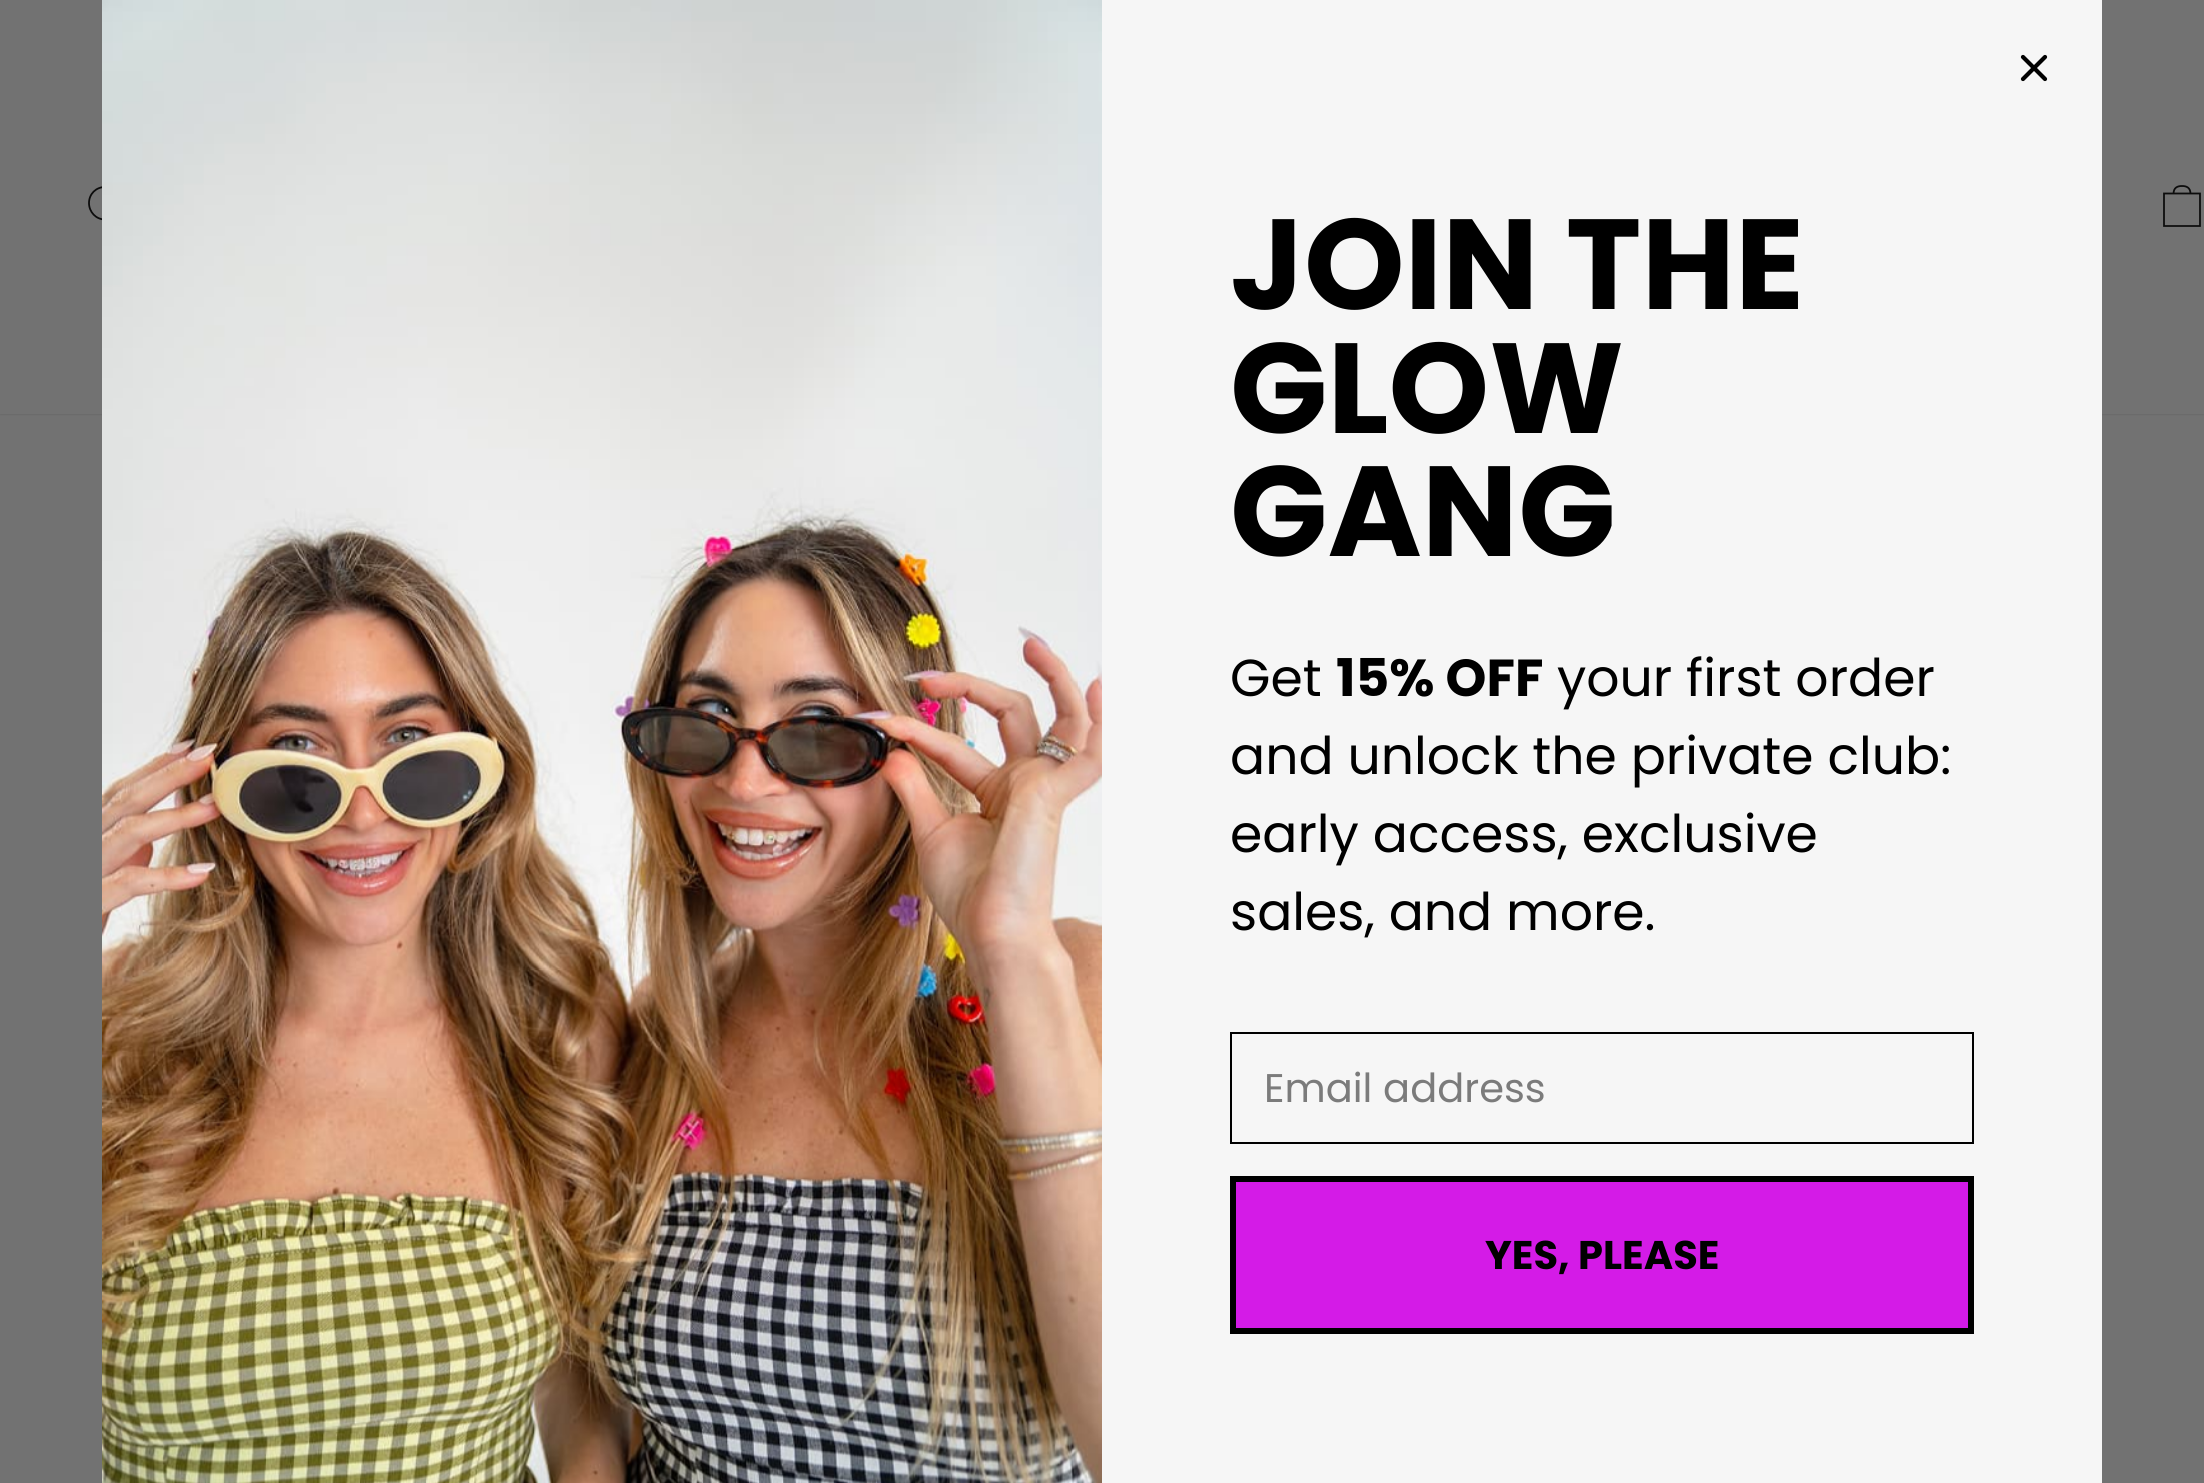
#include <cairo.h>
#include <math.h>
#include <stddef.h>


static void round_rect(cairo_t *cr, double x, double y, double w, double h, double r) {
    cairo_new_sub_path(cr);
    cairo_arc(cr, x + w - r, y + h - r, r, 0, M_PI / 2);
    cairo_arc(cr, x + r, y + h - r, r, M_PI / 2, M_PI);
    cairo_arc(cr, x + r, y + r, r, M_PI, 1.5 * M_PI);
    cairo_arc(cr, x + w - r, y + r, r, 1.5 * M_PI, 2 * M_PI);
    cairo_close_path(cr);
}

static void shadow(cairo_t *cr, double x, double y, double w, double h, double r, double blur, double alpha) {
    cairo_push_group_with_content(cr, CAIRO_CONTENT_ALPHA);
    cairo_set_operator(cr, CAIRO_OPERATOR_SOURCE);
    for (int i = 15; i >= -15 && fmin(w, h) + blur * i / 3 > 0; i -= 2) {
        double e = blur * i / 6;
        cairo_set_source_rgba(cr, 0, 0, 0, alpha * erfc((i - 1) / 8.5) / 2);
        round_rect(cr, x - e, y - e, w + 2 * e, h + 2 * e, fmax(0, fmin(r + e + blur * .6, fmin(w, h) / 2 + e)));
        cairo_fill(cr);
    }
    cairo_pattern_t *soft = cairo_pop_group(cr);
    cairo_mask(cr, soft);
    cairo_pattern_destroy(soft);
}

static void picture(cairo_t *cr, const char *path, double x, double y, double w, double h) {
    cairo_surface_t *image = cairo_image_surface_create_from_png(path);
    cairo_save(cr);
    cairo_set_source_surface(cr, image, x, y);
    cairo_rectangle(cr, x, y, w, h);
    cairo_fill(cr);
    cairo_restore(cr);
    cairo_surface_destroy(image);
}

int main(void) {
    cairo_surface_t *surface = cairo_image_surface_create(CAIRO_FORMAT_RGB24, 2204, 1483);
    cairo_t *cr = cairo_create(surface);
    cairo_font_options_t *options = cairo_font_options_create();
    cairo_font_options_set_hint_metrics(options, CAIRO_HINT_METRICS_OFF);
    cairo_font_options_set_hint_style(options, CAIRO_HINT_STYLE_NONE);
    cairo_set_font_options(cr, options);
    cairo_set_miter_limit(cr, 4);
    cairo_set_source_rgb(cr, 0.447, 0.447, 0.447);
    cairo_paint(cr);
    cairo_set_source_rgb(cr, 0.047, 0.047, 0.047);
    shadow(cr, 0, 0, 2204, 414, 0, 1, 0.2);
    cairo_set_source_rgb(cr, 0.447, 0.447, 0.447);
    cairo_rectangle(cr, 0, 0, 2204, 414);
    cairo_fill(cr);
    cairo_new_path(cr);
    cairo_move_to(cr, 121.5, 203);
    cairo_curve_to(cr, 121.5, 212, 114, 219.5, 105, 219.5);
    cairo_curve_to(cr, 96, 219.5, 89, 212, 89, 203);
    cairo_curve_to(cr, 89, 194, 96, 187, 105, 187);
    cairo_curve_to(cr, 114, 187, 121.5, 194, 121.5, 203);
    cairo_close_path(cr);
    cairo_move_to(cr, 127, 225);
    cairo_line_to(cr, 116.5, 215);
    cairo_set_source_rgb(cr, 0.047, 0.047, 0.047);
    cairo_set_line_width(cr, 1.8);
    cairo_stroke(cr);
    cairo_new_path(cr);
    cairo_move_to(cr, 2164, 193.5);
    cairo_line_to(cr, 2200, 193.5);
    cairo_line_to(cr, 2200, 226);
    cairo_line_to(cr, 2164, 226);
    cairo_close_path(cr);
    cairo_move_to(cr, 2173.5, 194);
    cairo_curve_to(cr, 2173.5, 187.5, 2177.5, 186, 2182, 186);
    cairo_curve_to(cr, 2186.5, 186, 2190.5, 187.5, 2190.5, 194);
    cairo_stroke(cr);
    cairo_set_source_rgb(cr, 0.961, 0.961, 0.961);
    cairo_rectangle(cr, 1102, 0, 1000, 1483);
    cairo_fill(cr);
    cairo_new_path(cr);
    cairo_move_to(cr, 2023, 57);
    cairo_line_to(cr, 2045, 79);
    cairo_move_to(cr, 2023, 79);
    cairo_line_to(cr, 2045, 57);
    cairo_close_path(cr);
    cairo_set_source_rgb(cr, 0, 0, 0);
    cairo_set_line_width(cr, 4.2);
    cairo_set_line_cap(cr, CAIRO_LINE_CAP_ROUND);
    cairo_set_line_join(cr, CAIRO_LINE_JOIN_ROUND);
    cairo_stroke(cr);
    picture(cr, "img1.png", 102, 0, 1000, 1483);
    cairo_select_font_face(cr, "Poppins", CAIRO_FONT_SLANT_NORMAL, CAIRO_FONT_WEIGHT_BOLD);
    cairo_set_font_size(cr, 128);
    cairo_move_to(cr, 1230, 309);
    cairo_show_text(cr, "JOIN THE");
    cairo_move_to(cr, 1230, 433);
    cairo_show_text(cr, "GLOW");
    cairo_move_to(cr, 1230, 556);
    cairo_show_text(cr, "GANG");
    cairo_select_font_face(cr, "Poppins", CAIRO_FONT_SLANT_NORMAL, CAIRO_FONT_WEIGHT_NORMAL);
    cairo_set_font_size(cr, 52);
    cairo_move_to(cr, 1230, 696);
    cairo_show_text(cr, "Get");
    cairo_select_font_face(cr, "Poppins", CAIRO_FONT_SLANT_NORMAL, CAIRO_FONT_WEIGHT_BOLD);
    cairo_move_to(cr, 1336, 696);
    cairo_show_text(cr, "15% OFF");
    cairo_select_font_face(cr, "Poppins", CAIRO_FONT_SLANT_NORMAL, CAIRO_FONT_WEIGHT_NORMAL);
    cairo_move_to(cr, 1557, 696);
    cairo_show_text(cr, "your first order");
    cairo_move_to(cr, 1230, 774);
    cairo_show_text(cr, "and unlock the private club:");
    cairo_move_to(cr, 1230, 852);
    cairo_show_text(cr, "early access, exclusive");
    cairo_move_to(cr, 1230, 930);
    cairo_show_text(cr, "sales, and more.");
    cairo_rectangle(cr, 1231, 1033, 742, 110);
    cairo_set_line_width(cr, 2);
    cairo_set_line_cap(cr, CAIRO_LINE_CAP_BUTT);
    cairo_set_line_join(cr, CAIRO_LINE_JOIN_MITER);
    cairo_stroke(cr);
    cairo_set_font_size(cr, 40);
    cairo_set_source_rgb(cr, 0.482, 0.482, 0.482);
    cairo_move_to(cr, 1264, 1102);
    cairo_show_text(cr, "Email address");
    cairo_set_source_rgb(cr, 0.831, 0.106, 0.906);
    cairo_rectangle(cr, 1233, 1179, 738, 152);
    cairo_fill_preserve(cr);
    cairo_set_source_rgb(cr, 0, 0, 0);
    cairo_set_line_width(cr, 6);
    cairo_stroke(cr);
    cairo_select_font_face(cr, "Poppins", CAIRO_FONT_SLANT_NORMAL, CAIRO_FONT_WEIGHT_BOLD);
    cairo_move_to(cr, 1485, 1269);
    cairo_show_text(cr, "YES, PLEASE");
    cairo_surface_write_to_png(surface, "page.png");
    cairo_font_options_destroy(options);
    cairo_destroy(cr);
    cairo_surface_destroy(surface);
    return 0;
}
